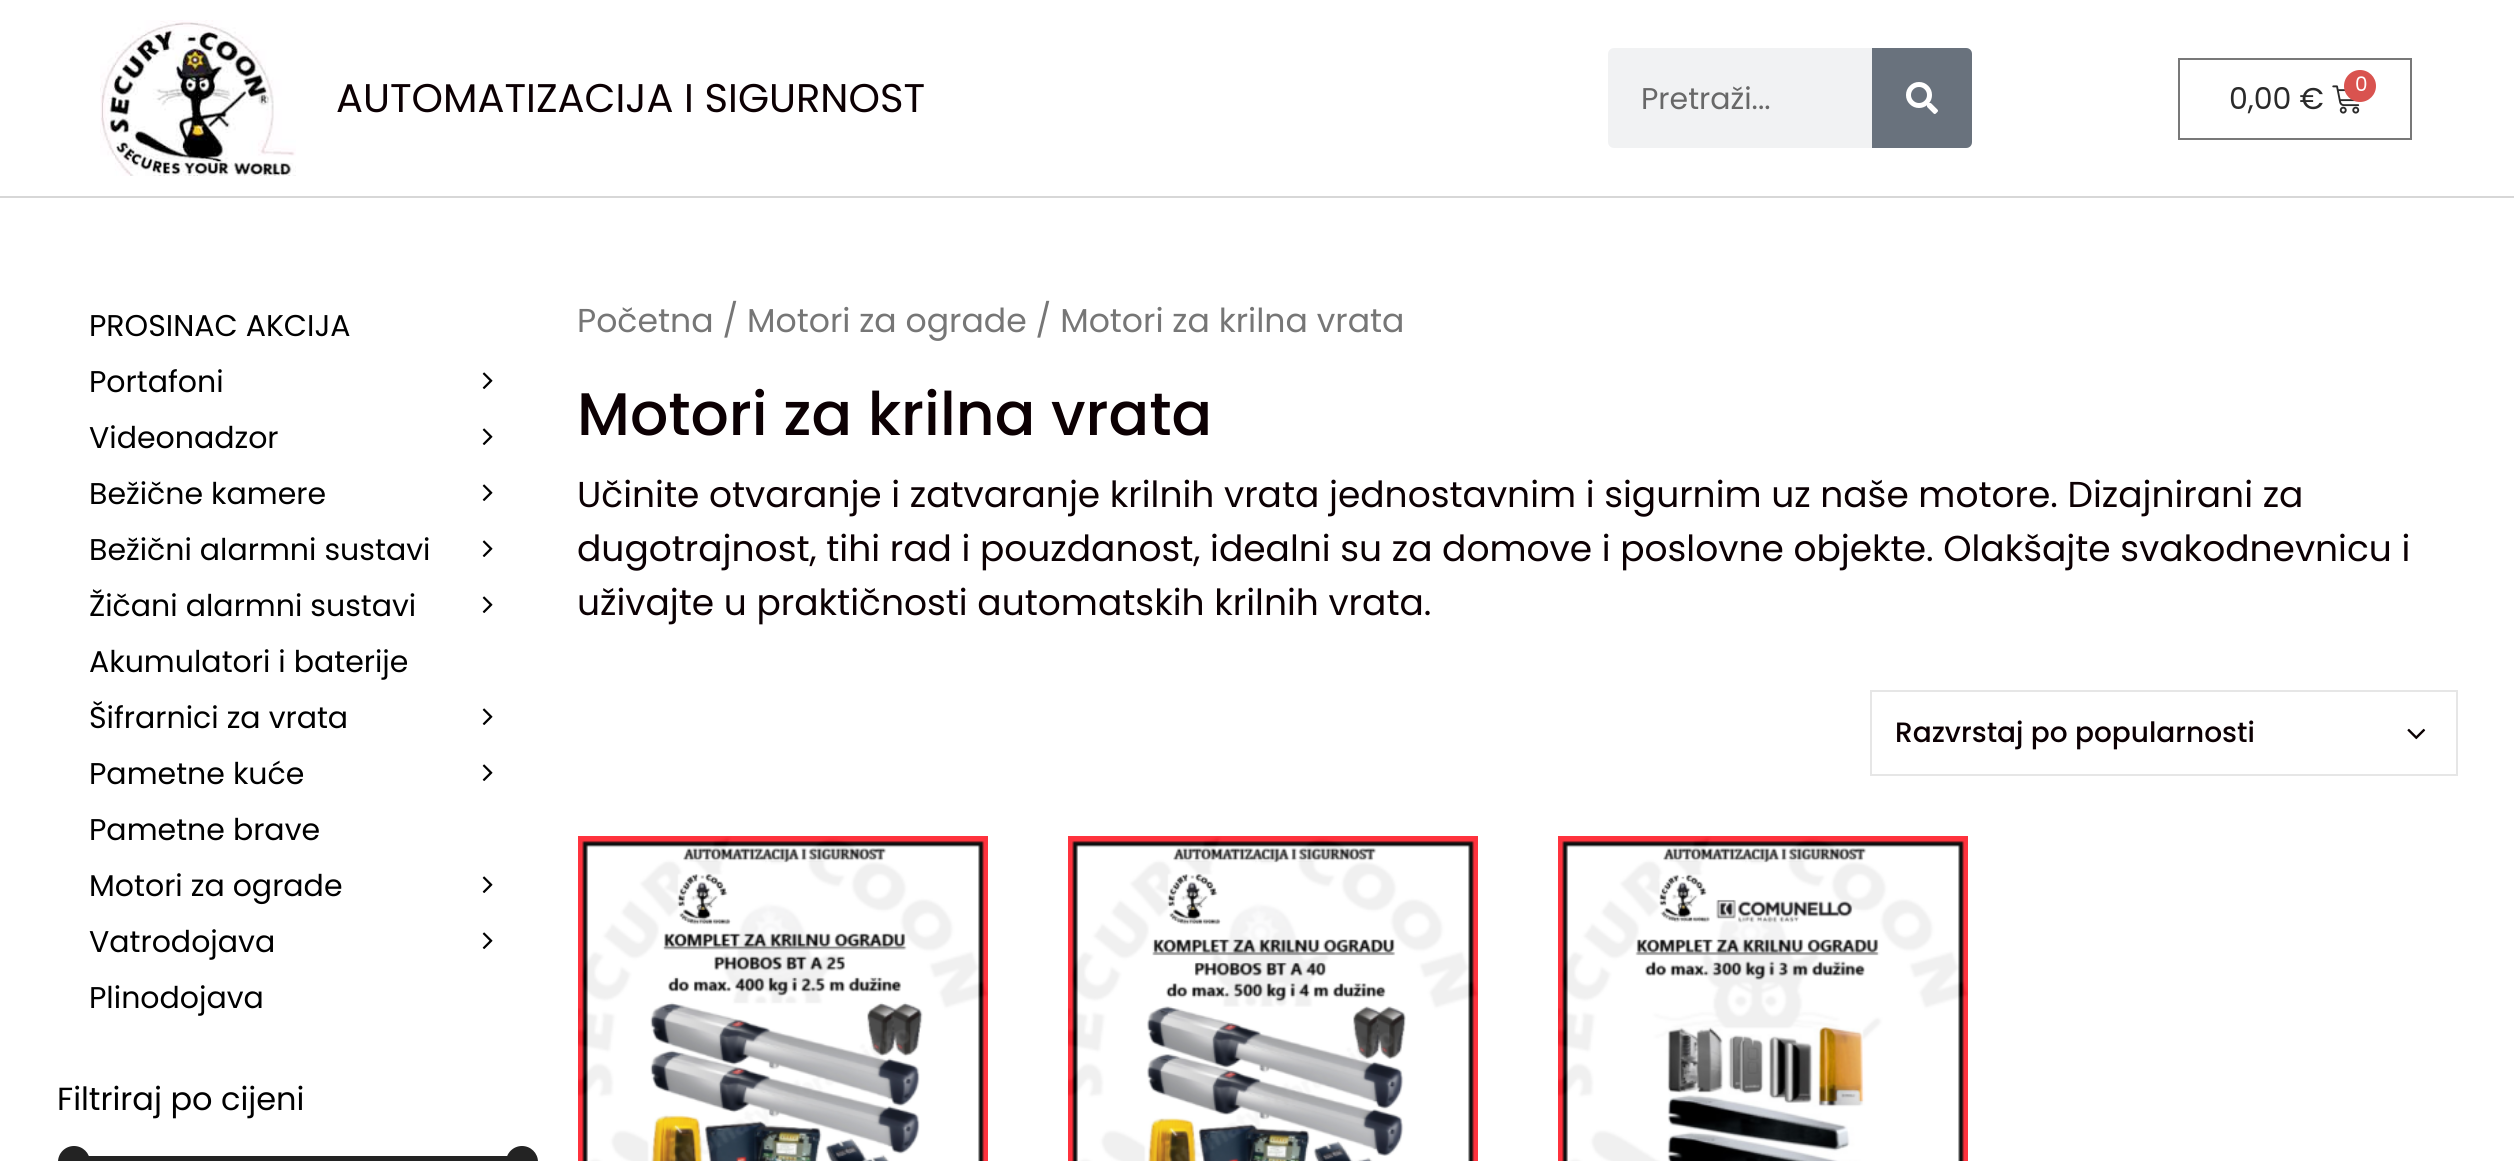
#include <cairo.h>
#include <math.h>
#include <stddef.h>


static void round_rect(cairo_t *cr, double x, double y, double w, double h, double r) {
    cairo_new_sub_path(cr);
    cairo_arc(cr, x + w - r, y + h - r, r, 0, M_PI / 2);
    cairo_arc(cr, x + r, y + h - r, r, M_PI / 2, M_PI);
    cairo_arc(cr, x + r, y + r, r, M_PI, 1.5 * M_PI);
    cairo_arc(cr, x + w - r, y + r, r, 1.5 * M_PI, 2 * M_PI);
    cairo_close_path(cr);
}

static void picture(cairo_t *cr, const char *path, double x, double y, double w, double h) {
    cairo_surface_t *image = cairo_image_surface_create_from_png(path);
    cairo_save(cr);
    cairo_set_source_surface(cr, image, x, y);
    cairo_rectangle(cr, x, y, w, h);
    cairo_fill(cr);
    cairo_restore(cr);
    cairo_surface_destroy(image);
}

int main(void) {
    cairo_surface_t *surface = cairo_image_surface_create(CAIRO_FORMAT_RGB24, 2514, 1161);
    cairo_t *cr = cairo_create(surface);
    cairo_font_options_t *options = cairo_font_options_create();
    cairo_font_options_set_hint_metrics(options, CAIRO_HINT_METRICS_OFF);
    cairo_font_options_set_hint_style(options, CAIRO_HINT_STYLE_NONE);
    cairo_set_font_options(cr, options);
    cairo_set_miter_limit(cr, 4);
    cairo_set_source_rgb(cr, 1, 1, 1);
    cairo_paint(cr);
    cairo_set_source_rgb(cr, 0.843, 0.843, 0.843);
    cairo_rectangle(cr, 0, 196, 2514, 2);
    cairo_fill(cr);
    picture(cr, "img1.png", 100, 20, 196, 156);
    cairo_select_font_face(cr, "Poppins", CAIRO_FONT_SLANT_NORMAL, CAIRO_FONT_WEIGHT_NORMAL);
    cairo_set_font_size(cr, 40);
    cairo_set_source_rgb(cr, 0.047, 0, 0.012);
    cairo_move_to(cr, 336, 112);
    cairo_show_text(cr, "AUTOMATIZACIJA I SIGURNOST");
    cairo_set_source_rgb(cr, 0.945, 0.949, 0.953);
    round_rect(cr, 1608, 48, 364, 100, 6);
    cairo_fill(cr);
    cairo_set_font_size(cr, 30);
    cairo_set_source_rgb(cr, 0.408, 0.408, 0.408);
    cairo_move_to(cr, 1641, 109);
    cairo_show_text(cr, "Pretraži...");
    cairo_set_source_rgb(cr, 0.412, 0.447, 0.49);
    cairo_new_path(cr);
    cairo_move_to(cr, 1872, 48);
    cairo_line_to(cr, 1966, 48);
    cairo_curve_to(cr, 1969.5, 48, 1972, 50.5, 1972, 54);
    cairo_line_to(cr, 1972, 142);
    cairo_curve_to(cr, 1972, 145.5, 1969.5, 148, 1966, 148);
    cairo_line_to(cr, 1872, 148);
    cairo_close_path(cr);
    cairo_fill(cr);
    picture(cr, "img2.png", 1906, 82, 32, 32);
    cairo_rectangle(cr, 2179, 59, 232, 80);
    cairo_set_source_rgb(cr, 0.471, 0.471, 0.471);
    cairo_stroke(cr);
    picture(cr, "img3.png", 2332, 85, 28, 29);
    cairo_set_source_rgb(cr, 0.851, 0.325, 0.31);
    cairo_arc(cr, 2360, 86, 16, 0, 2 * M_PI);
    cairo_fill(cr);
    cairo_set_font_size(cr, 20);
    cairo_set_source_rgb(cr, 1, 1, 1);
    cairo_move_to(cr, 2355, 91);
    cairo_show_text(cr, "0");
    cairo_set_font_size(cr, 30);
    cairo_set_source_rgb(cr, 0.165, 0.165, 0.165);
    cairo_move_to(cr, 2229, 109);
    cairo_show_text(cr, "0,00 €");
    cairo_set_source_rgb(cr, 0, 0, 0);
    cairo_move_to(cr, 89, 336);
    cairo_show_text(cr, "PROSINAC AKCIJA");
    cairo_move_to(cr, 89, 392);
    cairo_show_text(cr, "Portafoni");
    picture(cr, "img4.png", 482, 372, 11, 17);
    cairo_move_to(cr, 89, 448);
    cairo_show_text(cr, "Videonadzor");
    picture(cr, "img4.png", 482, 428, 11, 17);
    cairo_move_to(cr, 89, 504);
    cairo_show_text(cr, "Bežične kamere");
    picture(cr, "img4.png", 482, 484, 11, 17);
    cairo_move_to(cr, 89, 560);
    cairo_show_text(cr, "Bežični alarmni sustavi");
    picture(cr, "img4.png", 482, 540, 11, 17);
    cairo_move_to(cr, 89, 616);
    cairo_show_text(cr, "Žičani alarmni sustavi");
    picture(cr, "img4.png", 482, 596, 11, 17);
    cairo_move_to(cr, 89, 672);
    cairo_show_text(cr, "Akumulatori i baterije");
    cairo_move_to(cr, 89, 728);
    cairo_show_text(cr, "Šifrarnici za vrata");
    picture(cr, "img4.png", 482, 708, 11, 17);
    cairo_move_to(cr, 89, 784);
    cairo_show_text(cr, "Pametne kuće");
    picture(cr, "img4.png", 482, 764, 11, 17);
    cairo_move_to(cr, 89, 840);
    cairo_show_text(cr, "Pametne brave");
    cairo_move_to(cr, 89, 896);
    cairo_show_text(cr, "Motori za ograde");
    picture(cr, "img4.png", 482, 876, 11, 17);
    cairo_move_to(cr, 89, 952);
    cairo_show_text(cr, "Vatrodojava");
    picture(cr, "img4.png", 482, 932, 11, 17);
    cairo_move_to(cr, 89, 1008);
    cairo_show_text(cr, "Plinodojava");
    cairo_set_font_size(cr, 32);
    cairo_move_to(cr, 57, 1110);
    cairo_show_text(cr, "Filtriraj po cijeni");
    cairo_set_source_rgb(cr, 0.137, 0.137, 0.137);
    cairo_rectangle(cr, 88, 1156, 420, 5);
    cairo_fill(cr);
    round_rect(cr, 58, 1146, 32, 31, 16);
    cairo_fill(cr);
    round_rect(cr, 506, 1146, 32, 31, 16);
    cairo_fill(cr);
    cairo_set_font_size(cr, 33.1);
    cairo_set_source_rgb(cr, 0.463, 0.463, 0.463);
    cairo_move_to(cr, 577, 332);
    cairo_show_text(cr, "Početna / Motori za ograde / Motori za krilna vrata");
    cairo_select_font_face(cr, "Poppins Medium", CAIRO_FONT_SLANT_NORMAL, CAIRO_FONT_WEIGHT_NORMAL);
    cairo_set_font_size(cr, 60);
    cairo_set_source_rgb(cr, 0.047, 0, 0.012);
    cairo_move_to(cr, 577, 435);
    cairo_show_text(cr, "Motori za krilna vrata");
    cairo_select_font_face(cr, "Poppins", CAIRO_FONT_SLANT_NORMAL, CAIRO_FONT_WEIGHT_NORMAL);
    cairo_set_font_size(cr, 36);
    cairo_move_to(cr, 577, 507);
    cairo_show_text(cr, "Učinite otvaranje i zatvaranje krilnih vrata jednostavnim i sigurnim uz naše motore. Dizajnirani za");
    cairo_move_to(cr, 577, 561);
    cairo_show_text(cr, "dugotrajnost, tihi rad i pouzdanost, idealni su za domove i poslovne objekte. Olakšajte svakodnevnicu i");
    cairo_move_to(cr, 577, 615);
    cairo_show_text(cr, "uživajte u praktičnosti automatskih krilnih vrata.");
    cairo_rectangle(cr, 1871, 691, 586, 84);
    cairo_set_source_rgb(cr, 0.902, 0.902, 0.902);
    cairo_stroke(cr);
    cairo_select_font_face(cr, "Poppins Medium", CAIRO_FONT_SLANT_NORMAL, CAIRO_FONT_WEIGHT_NORMAL);
    cairo_set_font_size(cr, 28);
    cairo_set_source_rgb(cr, 0.047, 0, 0.012);
    cairo_move_to(cr, 1895, 742);
    cairo_show_text(cr, "Razvrstaj po popularnosti");
    picture(cr, "img5.png", 2407, 728, 19, 12);
    picture(cr, "img6.png", 578, 836, 410, 325);
    picture(cr, "img7.png", 1068, 836, 410, 325);
    picture(cr, "img8.png", 1558, 836, 410, 325);
    cairo_surface_write_to_png(surface, "page.png");
    cairo_font_options_destroy(options);
    cairo_destroy(cr);
    cairo_surface_destroy(surface);
    return 0;
}
